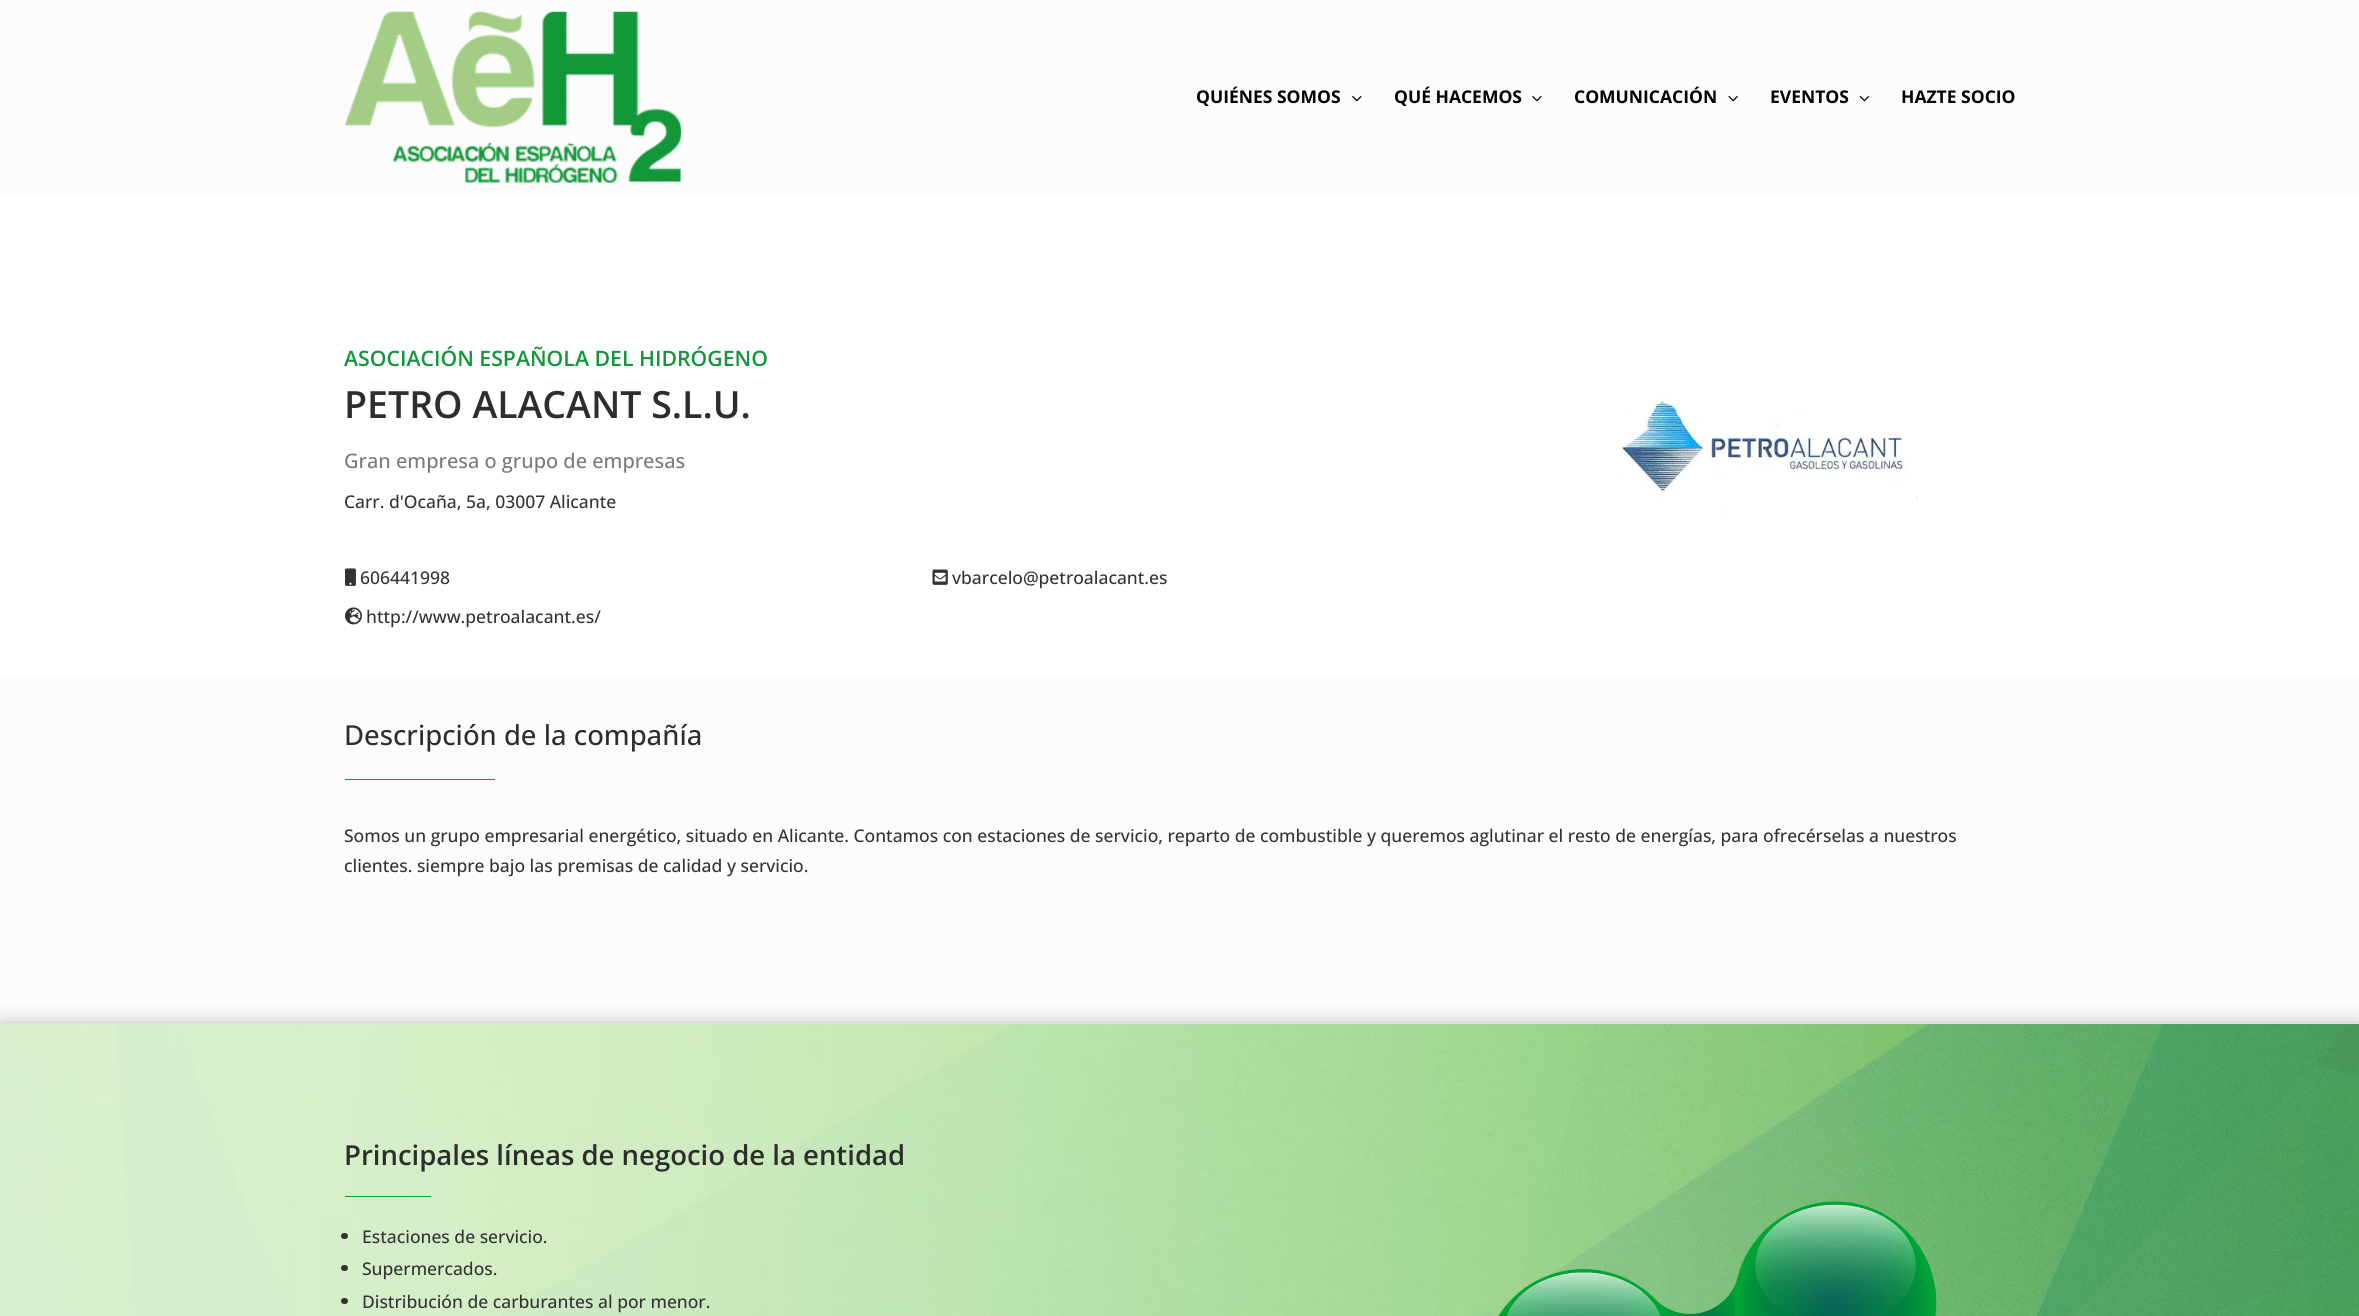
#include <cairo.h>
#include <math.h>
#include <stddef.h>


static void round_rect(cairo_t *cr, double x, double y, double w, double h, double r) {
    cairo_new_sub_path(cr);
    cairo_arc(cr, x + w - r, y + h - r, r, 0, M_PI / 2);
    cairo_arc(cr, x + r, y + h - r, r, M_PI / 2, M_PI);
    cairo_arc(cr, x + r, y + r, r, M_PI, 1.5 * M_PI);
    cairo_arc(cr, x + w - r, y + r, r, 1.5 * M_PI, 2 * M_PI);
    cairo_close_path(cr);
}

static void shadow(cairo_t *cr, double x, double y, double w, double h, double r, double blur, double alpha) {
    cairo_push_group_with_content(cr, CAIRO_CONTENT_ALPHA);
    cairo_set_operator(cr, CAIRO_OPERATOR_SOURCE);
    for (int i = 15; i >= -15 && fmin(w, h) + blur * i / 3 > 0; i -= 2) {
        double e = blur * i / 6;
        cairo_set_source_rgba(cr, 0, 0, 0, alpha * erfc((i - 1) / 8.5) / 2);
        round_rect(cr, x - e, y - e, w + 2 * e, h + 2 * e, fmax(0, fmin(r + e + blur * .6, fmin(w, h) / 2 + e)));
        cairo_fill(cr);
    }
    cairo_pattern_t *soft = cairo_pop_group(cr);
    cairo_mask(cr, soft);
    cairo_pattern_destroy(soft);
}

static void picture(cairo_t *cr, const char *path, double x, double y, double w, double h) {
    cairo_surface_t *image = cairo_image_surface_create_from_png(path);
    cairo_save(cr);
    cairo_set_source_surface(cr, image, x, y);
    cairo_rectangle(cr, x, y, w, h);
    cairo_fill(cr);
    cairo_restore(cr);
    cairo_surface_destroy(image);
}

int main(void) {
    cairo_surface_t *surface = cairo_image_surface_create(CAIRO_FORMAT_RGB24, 2359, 1316);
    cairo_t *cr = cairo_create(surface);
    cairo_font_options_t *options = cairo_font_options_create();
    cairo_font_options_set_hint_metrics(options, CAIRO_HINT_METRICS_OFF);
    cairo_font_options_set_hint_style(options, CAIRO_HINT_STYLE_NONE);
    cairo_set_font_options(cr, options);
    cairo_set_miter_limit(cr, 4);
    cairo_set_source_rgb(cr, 1, 1, 1);
    cairo_paint(cr);
    cairo_set_source_rgb(cr, 0.988, 0.988, 0.988);
    cairo_rectangle(cr, 0, 0, 2359, 194);
    cairo_fill(cr);
    picture(cr, "img1.png", 345, 11, 337, 172);
    cairo_select_font_face(cr, "Open Sans", CAIRO_FONT_SLANT_NORMAL, CAIRO_FONT_WEIGHT_BOLD);
    cairo_set_font_size(cr, 17.5);
    cairo_set_source_rgb(cr, 0, 0, 0);
    cairo_move_to(cr, 1196, 103);
    cairo_show_text(cr, "QUIÉNES SOMOS");
    picture(cr, "img2.png", 1352, 96, 10, 6);
    cairo_move_to(cr, 1394, 103);
    cairo_show_text(cr, "QUÉ HACEMOS");
    picture(cr, "img2.png", 1532, 96, 10, 6);
    cairo_move_to(cr, 1574, 103);
    cairo_show_text(cr, "COMUNICACIÓN");
    picture(cr, "img3.png", 1728, 96, 10, 6);
    cairo_move_to(cr, 1770, 103);
    cairo_show_text(cr, "EVENTOS");
    picture(cr, "img4.png", 1859, 96, 10, 6);
    cairo_move_to(cr, 1901, 103);
    cairo_show_text(cr, "HAZTE SOCIO");
    cairo_select_font_face(cr, "Open Sans SemiBold", CAIRO_FONT_SLANT_NORMAL, CAIRO_FONT_WEIGHT_NORMAL);
    cairo_set_font_size(cr, 21.25);
    cairo_set_source_rgb(cr, 0.075, 0.588, 0.224);
    cairo_move_to(cr, 344, 366);
    cairo_show_text(cr, "ASOCIACIÓN ESPAÑOLA DEL HIDRÓGENO");
    cairo_set_font_size(cr, 37.5);
    cairo_set_source_rgb(cr, 0.176, 0.176, 0.176);
    cairo_move_to(cr, 344, 418);
    cairo_show_text(cr, "PETRO ALACANT S.L.U.");
    cairo_select_font_face(cr, "Open Sans Medium", CAIRO_FONT_SLANT_NORMAL, CAIRO_FONT_WEIGHT_NORMAL);
    cairo_set_font_size(cr, 20);
    cairo_set_source_rgb(cr, 0.478, 0.478, 0.478);
    cairo_move_to(cr, 344, 468);
    cairo_show_text(cr, "Gran empresa o grupo de empresas");
    cairo_set_font_size(cr, 17.5);
    cairo_set_source_rgb(cr, 0.2, 0.2, 0.2);
    cairo_move_to(cr, 344, 508);
    cairo_show_text(cr, "Carr. d'Ocaña, 5a, 03007 Alicante");
    picture(cr, "img5.png", 345, 568, 11, 18);
    cairo_move_to(cr, 360, 584);
    cairo_show_text(cr, "606441998");
    picture(cr, "img6.png", 345, 607, 17, 18);
    cairo_move_to(cr, 366, 623);
    cairo_show_text(cr, "http://www.petroalacant.es/");
    picture(cr, "img7.png", 932, 569, 16, 16);
    cairo_move_to(cr, 952, 584);
    cairo_show_text(cr, "vbarcelo@petroalacant.es");
    picture(cr, "img8.png", 1620, 399, 298, 114);
    cairo_set_source_rgb(cr, 0.988, 0.988, 0.988);
    cairo_rectangle(cr, 0, 678, 2359, 346);
    cairo_fill(cr);
    cairo_set_font_size(cr, 27.5);
    cairo_set_source_rgb(cr, 0.176, 0.176, 0.176);
    cairo_move_to(cr, 344, 745);
    cairo_show_text(cr, "Descripción de la compañía");
    cairo_set_source_rgb(cr, 0.075, 0.588, 0.224);
    cairo_rectangle(cr, 345, 779, 150, 1);
    cairo_fill(cr);
    cairo_set_font_size(cr, 17.5);
    cairo_set_source_rgb(cr, 0.2, 0.2, 0.2);
    cairo_move_to(cr, 344, 842);
    cairo_show_text(cr, "Somos un grupo empresarial energético, situado en Alicante. Contamos con estaciones de servicio, reparto de combustible y queremos aglutinar el resto de energías, para ofrecérselas a nuestros");
    cairo_move_to(cr, 344, 872);
    cairo_show_text(cr, "clientes. siempre bajo las premisas de calidad y servicio.");
    cairo_set_source_rgb(cr, 0, 0, 0);
    shadow(cr, 0, 1026, 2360, 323, 0, 11, 0.3);
    picture(cr, "img9.png", 0, 1024, 2359, 292);
    cairo_select_font_face(cr, "Open Sans SemiBold", CAIRO_FONT_SLANT_NORMAL, CAIRO_FONT_WEIGHT_NORMAL);
    cairo_set_font_size(cr, 27.5);
    cairo_set_source_rgb(cr, 0.176, 0.176, 0.176);
    cairo_move_to(cr, 344, 1165);
    cairo_show_text(cr, "Principales líneas de negocio de la entidad");
    cairo_set_source_rgb(cr, 0.075, 0.588, 0.224);
    cairo_rectangle(cr, 345, 1196, 86, 1);
    cairo_fill(cr);
    cairo_set_source_rgb(cr, 0.2, 0.2, 0.2);
    round_rect(cr, 341, 1233, 7, 6, 3);
    cairo_fill(cr);
    cairo_select_font_face(cr, "Open Sans Medium", CAIRO_FONT_SLANT_NORMAL, CAIRO_FONT_WEIGHT_NORMAL);
    cairo_set_font_size(cr, 17.5);
    cairo_move_to(cr, 362, 1243);
    cairo_show_text(cr, "Estaciones de servicio.");
    round_rect(cr, 341, 1265, 7, 6, 3);
    cairo_fill(cr);
    cairo_move_to(cr, 362, 1275);
    cairo_show_text(cr, "Supermercados.");
    round_rect(cr, 341, 1298, 7, 6, 3);
    cairo_fill(cr);
    cairo_move_to(cr, 362, 1308);
    cairo_show_text(cr, "Distribución de carburantes al por menor.");
    picture(cr, "img10.png", 1498, 1201, 439, 115);
    cairo_surface_write_to_png(surface, "page.png");
    cairo_font_options_destroy(options);
    cairo_destroy(cr);
    cairo_surface_destroy(surface);
    return 0;
}
